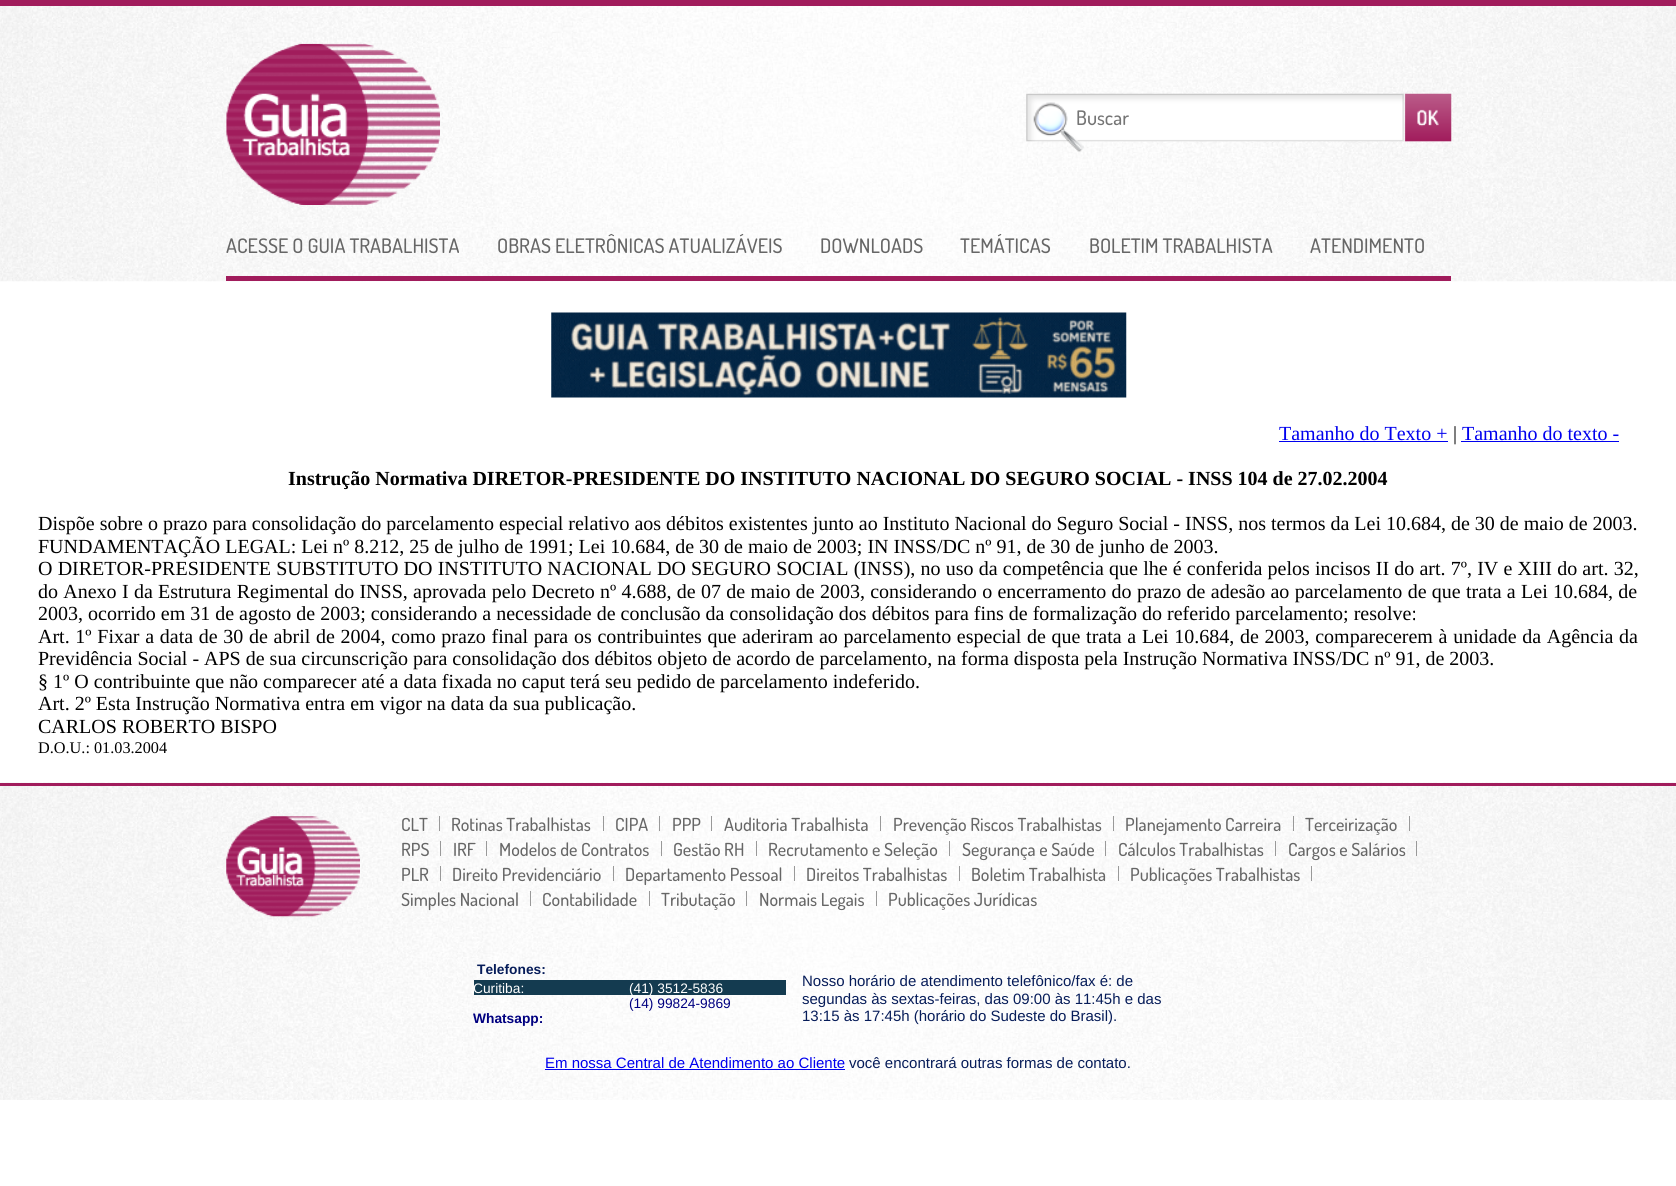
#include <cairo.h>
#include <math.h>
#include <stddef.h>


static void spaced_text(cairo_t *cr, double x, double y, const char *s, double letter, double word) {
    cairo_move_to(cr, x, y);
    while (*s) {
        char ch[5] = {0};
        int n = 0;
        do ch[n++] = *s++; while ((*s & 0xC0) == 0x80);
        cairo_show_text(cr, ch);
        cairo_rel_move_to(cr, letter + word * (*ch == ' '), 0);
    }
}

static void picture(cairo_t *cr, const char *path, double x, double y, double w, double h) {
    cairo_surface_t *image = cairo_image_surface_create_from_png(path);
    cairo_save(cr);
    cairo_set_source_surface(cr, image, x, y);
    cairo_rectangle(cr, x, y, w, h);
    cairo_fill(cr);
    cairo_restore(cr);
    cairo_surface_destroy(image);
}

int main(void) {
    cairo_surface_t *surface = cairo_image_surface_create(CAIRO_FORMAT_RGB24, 1676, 1186);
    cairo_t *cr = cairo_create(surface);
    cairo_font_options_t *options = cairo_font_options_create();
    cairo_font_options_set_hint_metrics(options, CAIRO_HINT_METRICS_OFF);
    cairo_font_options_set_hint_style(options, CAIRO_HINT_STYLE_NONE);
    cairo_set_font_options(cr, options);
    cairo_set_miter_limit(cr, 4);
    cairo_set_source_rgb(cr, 1, 1, 1);
    cairo_paint(cr);
    picture(cr, "img1.png", 0, 6, 1676, 276);
    cairo_set_source_rgb(cr, 0.631, 0.11, 0.361);
    cairo_rectangle(cr, 0, 0, 1676, 6);
    cairo_fill(cr);
    picture(cr, "img2.png", 226, 43, 214, 162);
    picture(cr, "img3.png", 1026, 93, 426, 59);
    cairo_select_font_face(cr, "Dosis Medium", CAIRO_FONT_SLANT_NORMAL, CAIRO_FONT_WEIGHT_NORMAL);
    cairo_set_font_size(cr, 20);
    cairo_set_source_rgb(cr, 0.459, 0.459, 0.459);
    cairo_move_to(cr, 1076, 125);
    cairo_show_text(cr, "Buscar");
    cairo_set_source_rgb(cr, 0.631, 0.11, 0.361);
    cairo_rectangle(cr, 226, 276, 1225, 5);
    cairo_fill(cr);
    cairo_set_source_rgb(cr, 0.4, 0.4, 0.4);
    cairo_move_to(cr, 226, 253);
    cairo_show_text(cr, "ACESSE O GUIA TRABALHISTA");
    cairo_move_to(cr, 497, 253);
    cairo_show_text(cr, "OBRAS ELETRÔNICAS ATUALIZÁVEIS");
    cairo_move_to(cr, 820, 253);
    cairo_show_text(cr, "DOWNLOADS");
    cairo_move_to(cr, 960, 253);
    cairo_show_text(cr, "TEMÁTICAS");
    cairo_move_to(cr, 1089, 253);
    cairo_show_text(cr, "BOLETIM TRABALHISTA");
    cairo_move_to(cr, 1310, 253);
    cairo_show_text(cr, "ATENDIMENTO");
    picture(cr, "img4.png", 551, 312, 576, 86);
    cairo_select_font_face(cr, "Liberation Serif", CAIRO_FONT_SLANT_NORMAL, CAIRO_FONT_WEIGHT_NORMAL);
    cairo_set_source_rgb(cr, 0, 0, 0.933);
    cairo_move_to(cr, 1279, 440);
    cairo_show_text(cr, "Tamanho do Texto +");
    cairo_rectangle(cr, 1279, 441, 169, 1);
    cairo_fill(cr);
    cairo_set_source_rgb(cr, 0, 0, 0);
    cairo_move_to(cr, 1453, 440);
    cairo_show_text(cr, "|");
    cairo_set_source_rgb(cr, 0, 0, 0.933);
    cairo_move_to(cr, 1462, 440);
    cairo_show_text(cr, "Tamanho do texto -");
    cairo_rectangle(cr, 1461, 441, 158, 1);
    cairo_fill(cr);
    cairo_select_font_face(cr, "Liberation Serif", CAIRO_FONT_SLANT_NORMAL, CAIRO_FONT_WEIGHT_BOLD);
    cairo_set_source_rgb(cr, 0, 0, 0);
    cairo_move_to(cr, 288, 485);
    cairo_show_text(cr, "Instrução Normativa DIRETOR-PRESIDENTE DO INSTITUTO NACIONAL DO SEGURO SOCIAL - INSS 104 de 27.02.2004");
    cairo_select_font_face(cr, "Liberation Serif", CAIRO_FONT_SLANT_NORMAL, CAIRO_FONT_WEIGHT_NORMAL);
    cairo_move_to(cr, 38, 530);
    cairo_show_text(cr, "Dispõe sobre o prazo para consolidação do parcelamento especial relativo aos débitos existentes junto ao Instituto Nacional do Seguro Social - INSS, nos termos da Lei 10.684, de 30 de maio de 2003.");
    cairo_move_to(cr, 38, 553);
    cairo_show_text(cr, "FUNDAMENTAÇÃO LEGAL: Lei nº 8.212, 25 de julho de 1991; Lei 10.684, de 30 de maio de 2003; IN INSS/DC nº 91, de 30 de junho de 2003.");
    spaced_text(cr, 38, 575, "O DIRETOR-PRESIDENTE SUBSTITUTO DO INSTITUTO NACIONAL DO SEGURO SOCIAL (INSS), no uso da competência que lhe é conferida pelos incisos II do art. 7º, IV e XIII do art. 32,", 0, 0.2);
    spaced_text(cr, 38, 598, "do Anexo I da Estrutura Regimental do INSS, aprovada pelo Decreto nº 4.688, de 07 de maio de 2003, considerando o encerramento do prazo de adesão ao parcelamento de que trata a Lei 10.684, de", 0, 0.3);
    cairo_move_to(cr, 38, 620);
    cairo_show_text(cr, "2003, ocorrido em 31 de agosto de 2003; considerando a necessidade de conclusão da consolidação dos débitos para fins de formalização do referido parcelamento; resolve:");
    spaced_text(cr, 38, 643, "Art. 1º Fixar a data de 30 de abril de 2004, como prazo final para os contribuintes que aderiram ao parcelamento especial de que trata a Lei 10.684, de 2003, comparecerem à unidade da Agência da", 0, 0.7);
    cairo_move_to(cr, 38, 665);
    cairo_show_text(cr, "Previdência Social - APS de sua circunscrição para consolidação dos débitos objeto de acordo de parcelamento, na forma disposta pela Instrução Normativa INSS/DC nº 91, de 2003.");
    cairo_move_to(cr, 38, 688);
    cairo_show_text(cr, "§ 1º O contribuinte que não comparecer até a data fixada no caput terá seu pedido de parcelamento indeferido.");
    cairo_move_to(cr, 38, 710);
    cairo_show_text(cr, "Art. 2º Esta Instrução Normativa entra em vigor na data da sua publicação.");
    cairo_move_to(cr, 38, 733);
    cairo_show_text(cr, "CARLOS ROBERTO BISPO");
    cairo_set_font_size(cr, 16.25);
    cairo_move_to(cr, 38, 753);
    cairo_show_text(cr, "D.O.U.: 01.03.2004");
    picture(cr, "img5.png", 0, 782, 1676, 318);
    cairo_set_source_rgb(cr, 0.631, 0.11, 0.361);
    cairo_rectangle(cr, 0, 783, 1676, 3);
    cairo_fill(cr);
    picture(cr, "img6.png", 226, 816, 134, 101);
    cairo_set_source_rgb(cr, 0.6, 0.6, 0.6);
    cairo_rectangle(cr, 439, 816, 1, 15);
    cairo_fill(cr);
    cairo_select_font_face(cr, "Dosis Medium", CAIRO_FONT_SLANT_NORMAL, CAIRO_FONT_WEIGHT_NORMAL);
    cairo_set_font_size(cr, 18);
    cairo_set_source_rgb(cr, 0.4, 0.4, 0.4);
    cairo_move_to(cr, 401, 831);
    cairo_show_text(cr, "CLT");
    cairo_set_source_rgb(cr, 0.6, 0.6, 0.6);
    cairo_rectangle(cr, 603, 816, 1, 15);
    cairo_fill(cr);
    cairo_set_source_rgb(cr, 0.4, 0.4, 0.4);
    cairo_move_to(cr, 451, 831);
    cairo_show_text(cr, "Rotinas Trabalhistas");
    cairo_set_source_rgb(cr, 0.6, 0.6, 0.6);
    cairo_rectangle(cr, 659, 816, 1, 15);
    cairo_fill(cr);
    cairo_set_source_rgb(cr, 0.4, 0.4, 0.4);
    cairo_move_to(cr, 615, 831);
    cairo_show_text(cr, "CIPA");
    cairo_set_source_rgb(cr, 0.6, 0.6, 0.6);
    cairo_rectangle(cr, 711, 816, 1, 15);
    cairo_fill(cr);
    cairo_set_source_rgb(cr, 0.4, 0.4, 0.4);
    cairo_move_to(cr, 672, 831);
    cairo_show_text(cr, "PPP");
    cairo_set_source_rgb(cr, 0.6, 0.6, 0.6);
    cairo_rectangle(cr, 880, 816, 1, 15);
    cairo_fill(cr);
    cairo_set_source_rgb(cr, 0.4, 0.4, 0.4);
    cairo_move_to(cr, 724, 831);
    cairo_show_text(cr, "Auditoria Trabalhista");
    cairo_set_source_rgb(cr, 0.6, 0.6, 0.6);
    cairo_rectangle(cr, 1113, 816, 1, 15);
    cairo_fill(cr);
    cairo_set_source_rgb(cr, 0.4, 0.4, 0.4);
    cairo_move_to(cr, 893, 831);
    cairo_show_text(cr, "Prevenção Riscos Trabalhistas");
    cairo_set_source_rgb(cr, 0.6, 0.6, 0.6);
    cairo_rectangle(cr, 1293, 816, 1, 15);
    cairo_fill(cr);
    cairo_set_source_rgb(cr, 0.4, 0.4, 0.4);
    cairo_move_to(cr, 1125, 831);
    cairo_show_text(cr, "Planejamento Carreira");
    cairo_set_source_rgb(cr, 0.6, 0.6, 0.6);
    cairo_rectangle(cr, 1409, 816, 1, 15);
    cairo_fill(cr);
    cairo_set_source_rgb(cr, 0.4, 0.4, 0.4);
    cairo_move_to(cr, 1305, 831);
    cairo_show_text(cr, "Terceirização");
    cairo_set_source_rgb(cr, 0.6, 0.6, 0.6);
    cairo_rectangle(cr, 440, 841, 1, 15);
    cairo_fill(cr);
    cairo_set_source_rgb(cr, 0.4, 0.4, 0.4);
    cairo_move_to(cr, 401, 856);
    cairo_show_text(cr, "RPS");
    cairo_set_source_rgb(cr, 0.6, 0.6, 0.6);
    cairo_rectangle(cr, 486, 841, 1, 15);
    cairo_fill(cr);
    cairo_set_source_rgb(cr, 0.4, 0.4, 0.4);
    cairo_move_to(cr, 453, 856);
    cairo_show_text(cr, "IRF");
    cairo_set_source_rgb(cr, 0.6, 0.6, 0.6);
    cairo_rectangle(cr, 661, 841, 1, 15);
    cairo_fill(cr);
    cairo_set_source_rgb(cr, 0.4, 0.4, 0.4);
    cairo_move_to(cr, 499, 856);
    cairo_show_text(cr, "Modelos de Contratos");
    cairo_set_source_rgb(cr, 0.6, 0.6, 0.6);
    cairo_rectangle(cr, 756, 841, 1, 15);
    cairo_fill(cr);
    cairo_set_source_rgb(cr, 0.4, 0.4, 0.4);
    cairo_move_to(cr, 673, 856);
    cairo_show_text(cr, "Gestão RH");
    cairo_set_source_rgb(cr, 0.6, 0.6, 0.6);
    cairo_rectangle(cr, 949, 841, 1, 15);
    cairo_fill(cr);
    cairo_set_source_rgb(cr, 0.4, 0.4, 0.4);
    cairo_move_to(cr, 768, 856);
    cairo_show_text(cr, "Recrutamento e Seleção");
    cairo_set_source_rgb(cr, 0.6, 0.6, 0.6);
    cairo_rectangle(cr, 1105, 841, 1, 15);
    cairo_fill(cr);
    cairo_set_source_rgb(cr, 0.4, 0.4, 0.4);
    cairo_move_to(cr, 962, 856);
    cairo_show_text(cr, "Segurança e Saúde");
    cairo_set_source_rgb(cr, 0.6, 0.6, 0.6);
    cairo_rectangle(cr, 1275, 841, 1, 15);
    cairo_fill(cr);
    cairo_set_source_rgb(cr, 0.4, 0.4, 0.4);
    cairo_move_to(cr, 1118, 856);
    cairo_show_text(cr, "Cálculos Trabalhistas");
    cairo_set_source_rgb(cr, 0.6, 0.6, 0.6);
    cairo_rectangle(cr, 1416, 841, 1, 15);
    cairo_fill(cr);
    cairo_set_source_rgb(cr, 0.4, 0.4, 0.4);
    cairo_move_to(cr, 1288, 856);
    cairo_show_text(cr, "Cargos e Salários");
    cairo_set_source_rgb(cr, 0.6, 0.6, 0.6);
    cairo_rectangle(cr, 440, 866, 1, 15);
    cairo_fill(cr);
    cairo_set_source_rgb(cr, 0.4, 0.4, 0.4);
    cairo_move_to(cr, 401, 881);
    cairo_show_text(cr, "PLR");
    cairo_set_source_rgb(cr, 0.6, 0.6, 0.6);
    cairo_rectangle(cr, 613, 866, 1, 15);
    cairo_fill(cr);
    cairo_set_source_rgb(cr, 0.4, 0.4, 0.4);
    cairo_move_to(cr, 452, 881);
    cairo_show_text(cr, "Direito Previdenciário");
    cairo_set_source_rgb(cr, 0.6, 0.6, 0.6);
    cairo_rectangle(cr, 794, 866, 1, 15);
    cairo_fill(cr);
    cairo_set_source_rgb(cr, 0.4, 0.4, 0.4);
    cairo_move_to(cr, 625, 881);
    cairo_show_text(cr, "Departamento Pessoal");
    cairo_set_source_rgb(cr, 0.6, 0.6, 0.6);
    cairo_rectangle(cr, 959, 866, 1, 15);
    cairo_fill(cr);
    cairo_set_source_rgb(cr, 0.4, 0.4, 0.4);
    cairo_move_to(cr, 806, 881);
    cairo_show_text(cr, "Direitos Trabalhistas");
    cairo_set_source_rgb(cr, 0.6, 0.6, 0.6);
    cairo_rectangle(cr, 1118, 866, 1, 15);
    cairo_fill(cr);
    cairo_set_source_rgb(cr, 0.4, 0.4, 0.4);
    cairo_move_to(cr, 971, 881);
    cairo_show_text(cr, "Boletim Trabalhista");
    cairo_set_source_rgb(cr, 0.6, 0.6, 0.6);
    cairo_rectangle(cr, 1311, 866, 1, 15);
    cairo_fill(cr);
    cairo_set_source_rgb(cr, 0.4, 0.4, 0.4);
    cairo_move_to(cr, 1130, 881);
    cairo_show_text(cr, "Publicações Trabalhistas");
    cairo_set_source_rgb(cr, 0.6, 0.6, 0.6);
    cairo_rectangle(cr, 530, 891, 1, 15);
    cairo_fill(cr);
    cairo_set_source_rgb(cr, 0.4, 0.4, 0.4);
    cairo_move_to(cr, 401, 906);
    cairo_show_text(cr, "Simples Nacional");
    cairo_set_source_rgb(cr, 0.6, 0.6, 0.6);
    cairo_rectangle(cr, 649, 891, 1, 15);
    cairo_fill(cr);
    cairo_set_source_rgb(cr, 0.4, 0.4, 0.4);
    cairo_move_to(cr, 542, 906);
    cairo_show_text(cr, "Contabilidade");
    cairo_set_source_rgb(cr, 0.6, 0.6, 0.6);
    cairo_rectangle(cr, 746, 891, 1, 15);
    cairo_fill(cr);
    cairo_set_source_rgb(cr, 0.4, 0.4, 0.4);
    cairo_move_to(cr, 661, 906);
    cairo_show_text(cr, "Tributação");
    cairo_set_source_rgb(cr, 0.6, 0.6, 0.6);
    cairo_rectangle(cr, 876, 891, 1, 15);
    cairo_fill(cr);
    cairo_set_source_rgb(cr, 0.4, 0.4, 0.4);
    cairo_move_to(cr, 759, 906);
    cairo_show_text(cr, "Normais Legais");
    cairo_move_to(cr, 888, 906);
    cairo_show_text(cr, "Publicações Jurídicas");
    cairo_select_font_face(cr, "Liberation Sans", CAIRO_FONT_SLANT_NORMAL, CAIRO_FONT_WEIGHT_BOLD);
    cairo_set_font_size(cr, 13.75);
    cairo_set_source_rgb(cr, 0.027, 0.11, 0.349);
    cairo_move_to(cr, 477, 974);
    cairo_show_text(cr, "Telefones:");
    cairo_set_source_rgb(cr, 0.082, 0.231, 0.314);
    cairo_rectangle(cr, 474, 980, 312, 15);
    cairo_fill(cr);
    cairo_select_font_face(cr, "Liberation Sans", CAIRO_FONT_SLANT_NORMAL, CAIRO_FONT_WEIGHT_NORMAL);
    cairo_set_source_rgb(cr, 1, 1, 1);
    cairo_move_to(cr, 473, 993);
    cairo_show_text(cr, "Curitiba:");
    cairo_move_to(cr, 629, 993);
    cairo_show_text(cr, "(41) 3512-5836");
    cairo_set_source_rgb(cr, 0, 0, 0.502);
    cairo_move_to(cr, 629, 1008);
    cairo_show_text(cr, "(14) 99824-9869");
    cairo_select_font_face(cr, "Liberation Sans", CAIRO_FONT_SLANT_NORMAL, CAIRO_FONT_WEIGHT_BOLD);
    cairo_move_to(cr, 473, 1023);
    cairo_show_text(cr, "Whatsapp:");
    cairo_select_font_face(cr, "Liberation Sans", CAIRO_FONT_SLANT_NORMAL, CAIRO_FONT_WEIGHT_NORMAL);
    cairo_set_font_size(cr, 15);
    cairo_set_source_rgb(cr, 0.027, 0.11, 0.349);
    cairo_move_to(cr, 802, 986);
    cairo_show_text(cr, "Nosso horário de atendimento telefônico/fax é: de");
    cairo_move_to(cr, 802, 1004);
    cairo_show_text(cr, "segundas às sextas-feiras, das 09:00 às 11:45h e das");
    cairo_move_to(cr, 802, 1021);
    cairo_show_text(cr, "13:15 às 17:45h (horário do Sudeste do Brasil).");
    cairo_set_source_rgb(cr, 0, 0, 0.933);
    cairo_move_to(cr, 545, 1068);
    cairo_show_text(cr, "Em nossa Central de Atendimento ao Cliente");
    cairo_rectangle(cr, 545, 1069, 300, 1);
    cairo_fill(cr);
    cairo_set_source_rgb(cr, 0.027, 0.11, 0.349);
    cairo_move_to(cr, 849, 1068);
    cairo_show_text(cr, "você encontrará outras formas de contato.");
    cairo_surface_write_to_png(surface, "page.png");
    cairo_font_options_destroy(options);
    cairo_destroy(cr);
    cairo_surface_destroy(surface);
    return 0;
}
